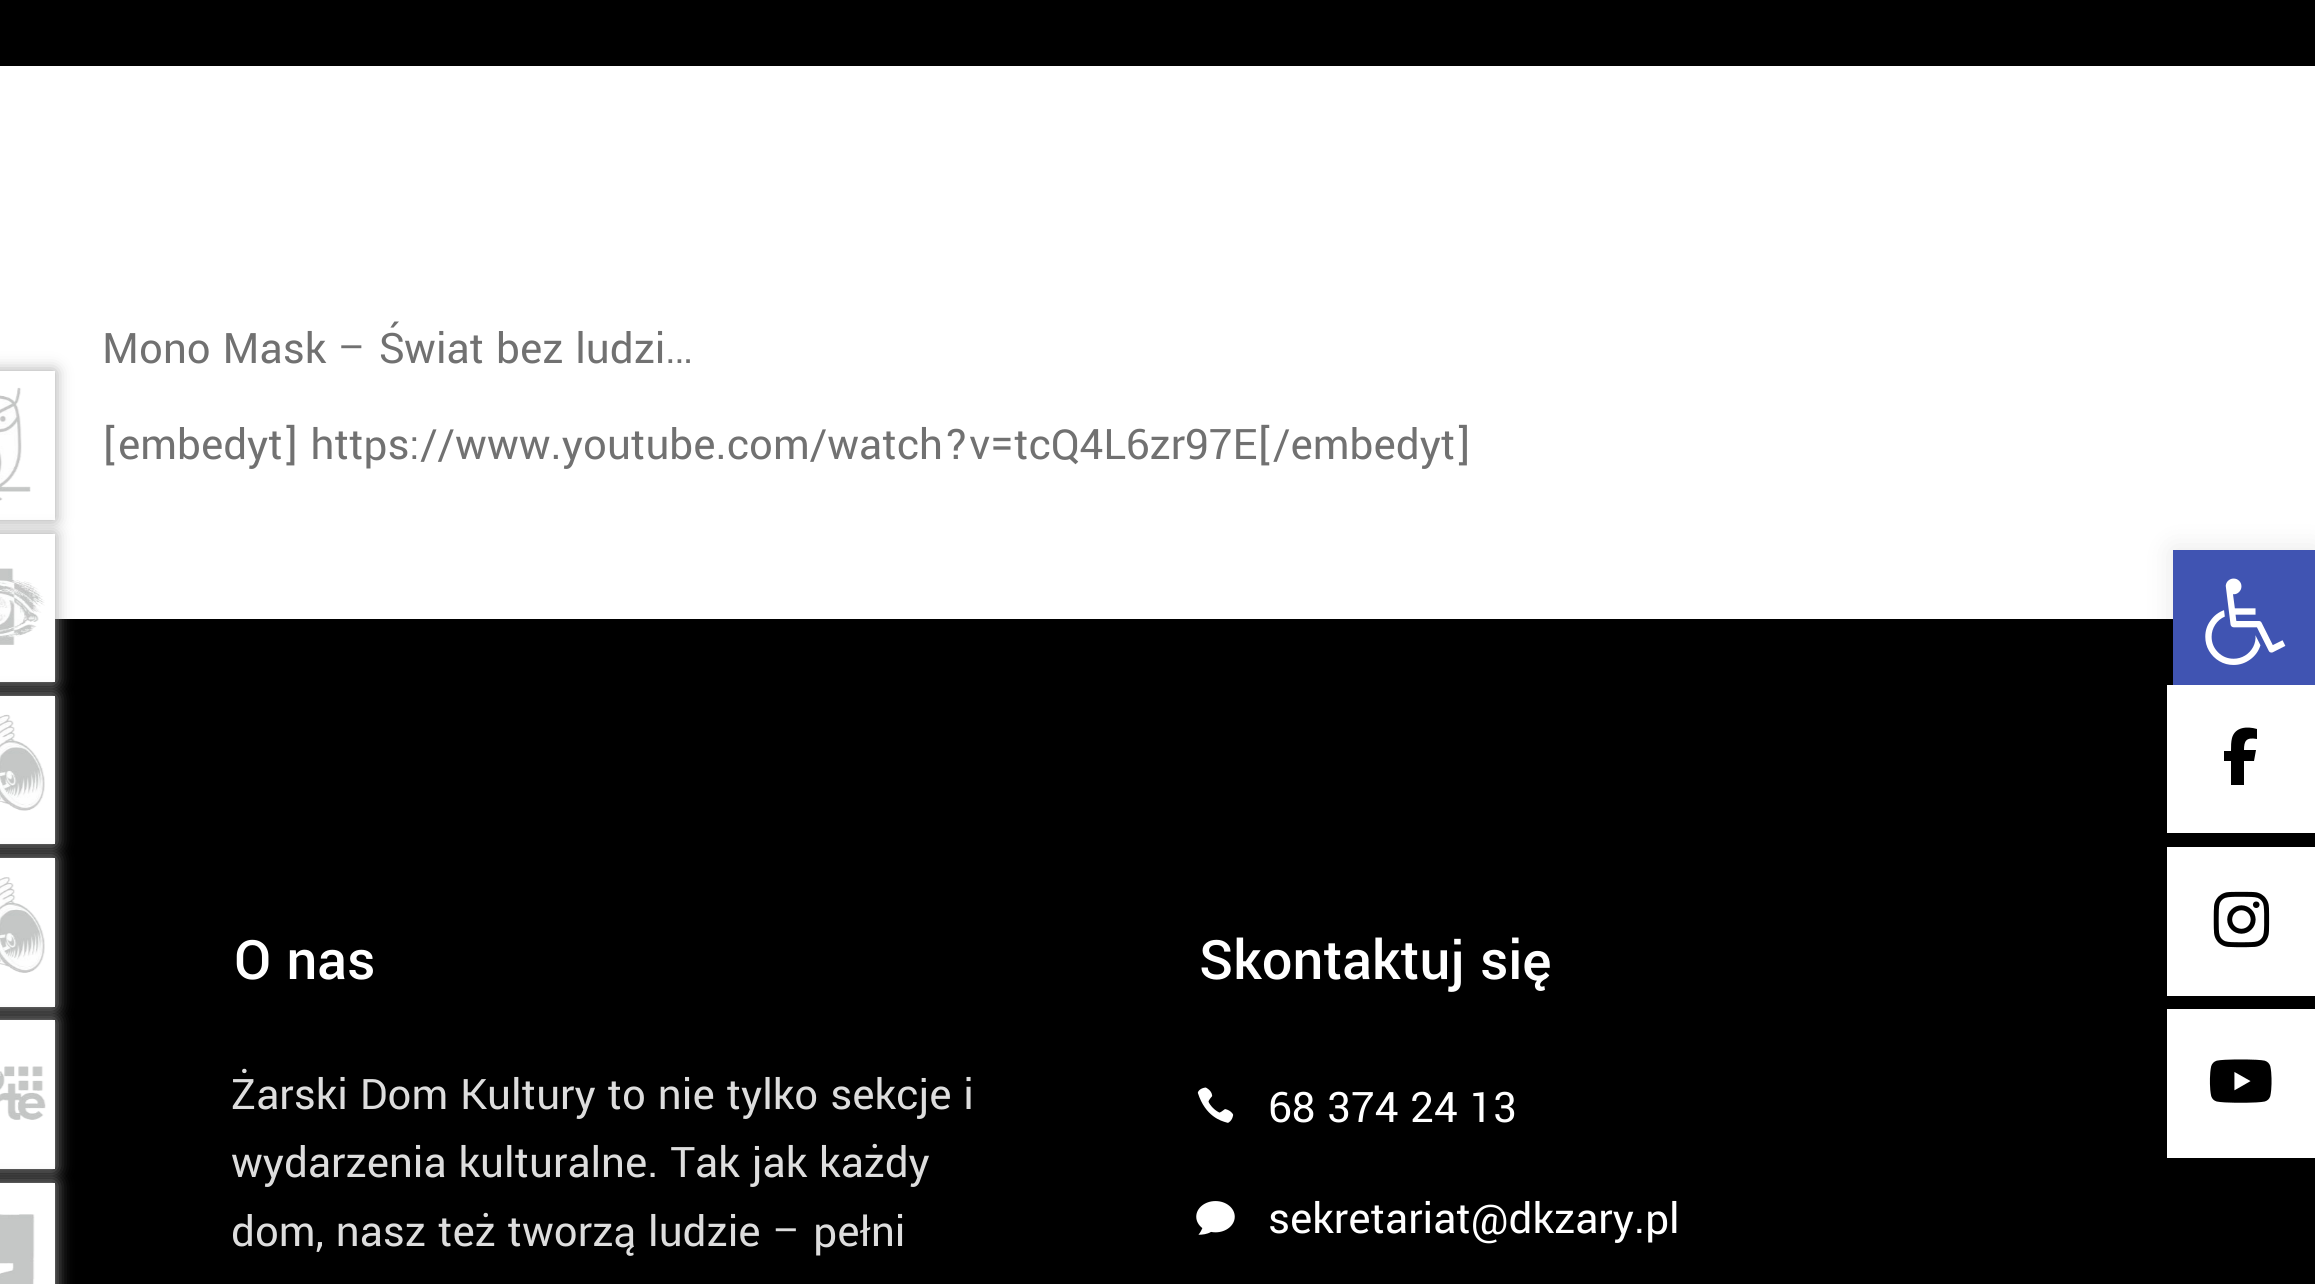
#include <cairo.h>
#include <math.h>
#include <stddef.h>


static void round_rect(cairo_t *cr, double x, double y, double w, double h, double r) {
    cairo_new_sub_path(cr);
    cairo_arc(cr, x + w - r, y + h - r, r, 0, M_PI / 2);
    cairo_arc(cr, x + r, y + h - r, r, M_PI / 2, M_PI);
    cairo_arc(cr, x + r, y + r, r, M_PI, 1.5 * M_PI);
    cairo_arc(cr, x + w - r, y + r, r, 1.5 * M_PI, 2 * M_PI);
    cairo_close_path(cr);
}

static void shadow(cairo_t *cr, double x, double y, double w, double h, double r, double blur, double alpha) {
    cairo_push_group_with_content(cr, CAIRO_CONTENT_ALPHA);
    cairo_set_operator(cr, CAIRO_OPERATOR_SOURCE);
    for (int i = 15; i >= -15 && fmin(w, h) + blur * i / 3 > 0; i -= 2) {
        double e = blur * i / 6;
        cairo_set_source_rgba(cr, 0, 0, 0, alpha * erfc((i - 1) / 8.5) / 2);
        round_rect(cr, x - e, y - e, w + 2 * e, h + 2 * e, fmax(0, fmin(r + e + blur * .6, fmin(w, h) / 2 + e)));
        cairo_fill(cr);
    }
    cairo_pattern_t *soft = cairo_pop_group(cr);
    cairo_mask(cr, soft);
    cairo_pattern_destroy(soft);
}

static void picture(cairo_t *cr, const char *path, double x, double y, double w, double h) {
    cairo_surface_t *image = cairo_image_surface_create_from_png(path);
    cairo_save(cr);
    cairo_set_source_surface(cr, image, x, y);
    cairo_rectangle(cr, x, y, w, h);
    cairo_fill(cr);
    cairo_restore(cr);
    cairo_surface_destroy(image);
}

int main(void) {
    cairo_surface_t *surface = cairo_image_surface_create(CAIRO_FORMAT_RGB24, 2315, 1284);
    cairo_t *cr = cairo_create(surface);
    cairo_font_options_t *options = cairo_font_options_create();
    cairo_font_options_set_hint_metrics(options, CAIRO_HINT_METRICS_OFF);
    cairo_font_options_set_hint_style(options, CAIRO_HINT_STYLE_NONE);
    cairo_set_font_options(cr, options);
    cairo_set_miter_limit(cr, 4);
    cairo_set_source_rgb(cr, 1, 1, 1);
    cairo_paint(cr);
    cairo_set_source_rgb(cr, 0.639, 0.639, 0.639);
    shadow(cr, -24, 371, 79, 149, 0, 8, 1);
    cairo_set_source_rgb(cr, 1, 1, 1);
    cairo_rectangle(cr, 0, 371, 55, 149);
    cairo_fill(cr);
    picture(cr, "img1.png", 0, 387, 31, 114);
    cairo_set_source_rgb(cr, 0, 0, 0);
    cairo_rectangle(cr, 0, 619, 2315, 665);
    cairo_fill(cr);
    cairo_set_source_rgb(cr, 0.639, 0.639, 0.639);
    shadow(cr, -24, 534, 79, 148, 0, 8, 1);
    cairo_set_source_rgb(cr, 1, 1, 1);
    cairo_rectangle(cr, 0, 534, 55, 148);
    cairo_fill(cr);
    picture(cr, "img2.png", 0, 568, 45, 77);
    cairo_set_source_rgb(cr, 0.639, 0.639, 0.639);
    shadow(cr, -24, 696, 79, 148, 0, 8, 1);
    cairo_set_source_rgb(cr, 1, 1, 1);
    cairo_rectangle(cr, 0, 696, 55, 148);
    cairo_fill(cr);
    picture(cr, "img3.png", 0, 714, 45, 97);
    cairo_set_source_rgb(cr, 0.639, 0.639, 0.639);
    shadow(cr, -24, 858, 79, 149, 0, 8, 1);
    cairo_set_source_rgb(cr, 1, 1, 1);
    cairo_rectangle(cr, 0, 858, 55, 149);
    cairo_fill(cr);
    picture(cr, "img4.png", 0, 877, 45, 96);
    cairo_set_source_rgb(cr, 0.639, 0.639, 0.639);
    shadow(cr, -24, 1020, 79, 149, 0, 8, 1);
    cairo_set_source_rgb(cr, 1, 1, 1);
    cairo_rectangle(cr, 0, 1020, 55, 149);
    cairo_fill(cr);
    picture(cr, "img5.png", 0, 1066, 46, 54);
    cairo_set_source_rgb(cr, 0.639, 0.639, 0.639);
    shadow(cr, -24, 1183, 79, 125, 0, 8, 1);
    cairo_set_source_rgb(cr, 1, 1, 1);
    cairo_rectangle(cr, 0, 1183, 55, 101);
    cairo_fill(cr);
    picture(cr, "img6.png", 0, 1214, 35, 70);
    cairo_set_source_rgb(cr, 0, 0, 0);
    cairo_rectangle(cr, 0, 0, 2315, 66);
    cairo_fill(cr);
    cairo_select_font_face(cr, "Yantramanav", CAIRO_FONT_SLANT_NORMAL, CAIRO_FONT_WEIGHT_NORMAL);
    cairo_set_font_size(cr, 46.75);
    cairo_set_source_rgb(cr, 0.443, 0.443, 0.443);
    cairo_move_to(cr, 102, 363);
    cairo_show_text(cr, "Mono Mask – Świat bez ludzi…");
    cairo_move_to(cr, 102, 459);
    cairo_show_text(cr, "[embedyt] https://www.youtube.com/watch?v=tcQ4L6zr97E[/embedyt]");
    cairo_select_font_face(cr, "Yantramanav Medium", CAIRO_FONT_SLANT_NORMAL, CAIRO_FONT_WEIGHT_NORMAL);
    cairo_set_font_size(cr, 60.5);
    cairo_set_source_rgb(cr, 1, 1, 1);
    cairo_move_to(cr, 234, 979);
    cairo_show_text(cr, "O nas");
    cairo_select_font_face(cr, "Yantramanav", CAIRO_FONT_SLANT_NORMAL, CAIRO_FONT_WEIGHT_NORMAL);
    cairo_set_font_size(cr, 46.75);
    cairo_set_source_rgb(cr, 0.867, 0.867, 0.867);
    cairo_move_to(cr, 231, 1109);
    cairo_show_text(cr, "Żarski Dom Kultury to nie tylko sekcje i");
    cairo_move_to(cr, 231, 1177);
    cairo_show_text(cr, "wydarzenia kulturalne. Tak jak każdy");
    cairo_move_to(cr, 231, 1246);
    cairo_show_text(cr, "dom, nasz też tworzą ludzie – pełni");
    cairo_select_font_face(cr, "Yantramanav Medium", CAIRO_FONT_SLANT_NORMAL, CAIRO_FONT_WEIGHT_NORMAL);
    cairo_set_font_size(cr, 60.5);
    cairo_set_source_rgb(cr, 1, 1, 1);
    cairo_move_to(cr, 1199, 979);
    cairo_show_text(cr, "Skontaktuj się");
    picture(cr, "img7.png", 1197, 1087, 37, 36);
    cairo_select_font_face(cr, "Yantramanav", CAIRO_FONT_SLANT_NORMAL, CAIRO_FONT_WEIGHT_NORMAL);
    cairo_set_font_size(cr, 46.75);
    cairo_move_to(cr, 1268, 1122);
    cairo_show_text(cr, "68 374 24 13");
    picture(cr, "img8.png", 1196, 1201, 39, 34);
    cairo_move_to(cr, 1268, 1233);
    cairo_show_text(cr, "sekretariat@dkzary.pl");
    cairo_set_source_rgb(cr, 0, 0, 0);
    shadow(cr, 2173, 550, 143, 143, 0, 14, 0.1);
    cairo_set_source_rgb(cr, 0.251, 0.329, 0.698);
    cairo_rectangle(cr, 2173, 550, 142, 135);
    cairo_fill(cr);
    picture(cr, "img9.png", 2205, 578, 81, 87);
    cairo_set_source_rgb(cr, 1, 1, 1);
    cairo_rectangle(cr, 2167, 685, 148, 148);
    cairo_fill(cr);
    cairo_set_source_rgb(cr, 0, 0, 0);
    cairo_new_path(cr);
    cairo_move_to(cr, 2231, 761);
    cairo_line_to(cr, 2231, 785);
    cairo_line_to(cr, 2231, 761);
    cairo_line_to(cr, 2231, 785);
    cairo_line_to(cr, 2244, 785);
    cairo_line_to(cr, 2244, 761);
    cairo_line_to(cr, 2254, 761);
    cairo_line_to(cr, 2256, 750);
    cairo_line_to(cr, 2244, 750);
    cairo_curve_to(cr, 2244, 741, 2246, 737, 2257, 739);
    cairo_line_to(cr, 2257, 729);
    cairo_curve_to(cr, 2247, 726, 2235, 727, 2232, 738);
    cairo_curve_to(cr, 2231, 742, 2231, 746, 2231, 751);
    cairo_line_to(cr, 2224, 751);
    cairo_line_to(cr, 2224, 761);
    cairo_close_path(cr);
    cairo_fill(cr);
    cairo_set_source_rgb(cr, 1, 1, 1);
    cairo_rectangle(cr, 2167, 847, 148, 149);
    cairo_fill(cr);
    picture(cr, "img10.png", 2213, 891, 57, 57);
    cairo_rectangle(cr, 2167, 1009, 148, 149);
    cairo_fill(cr);
    picture(cr, "img11.png", 2209, 1059, 63, 44);
    cairo_surface_write_to_png(surface, "page.png");
    cairo_font_options_destroy(options);
    cairo_destroy(cr);
    cairo_surface_destroy(surface);
    return 0;
}
